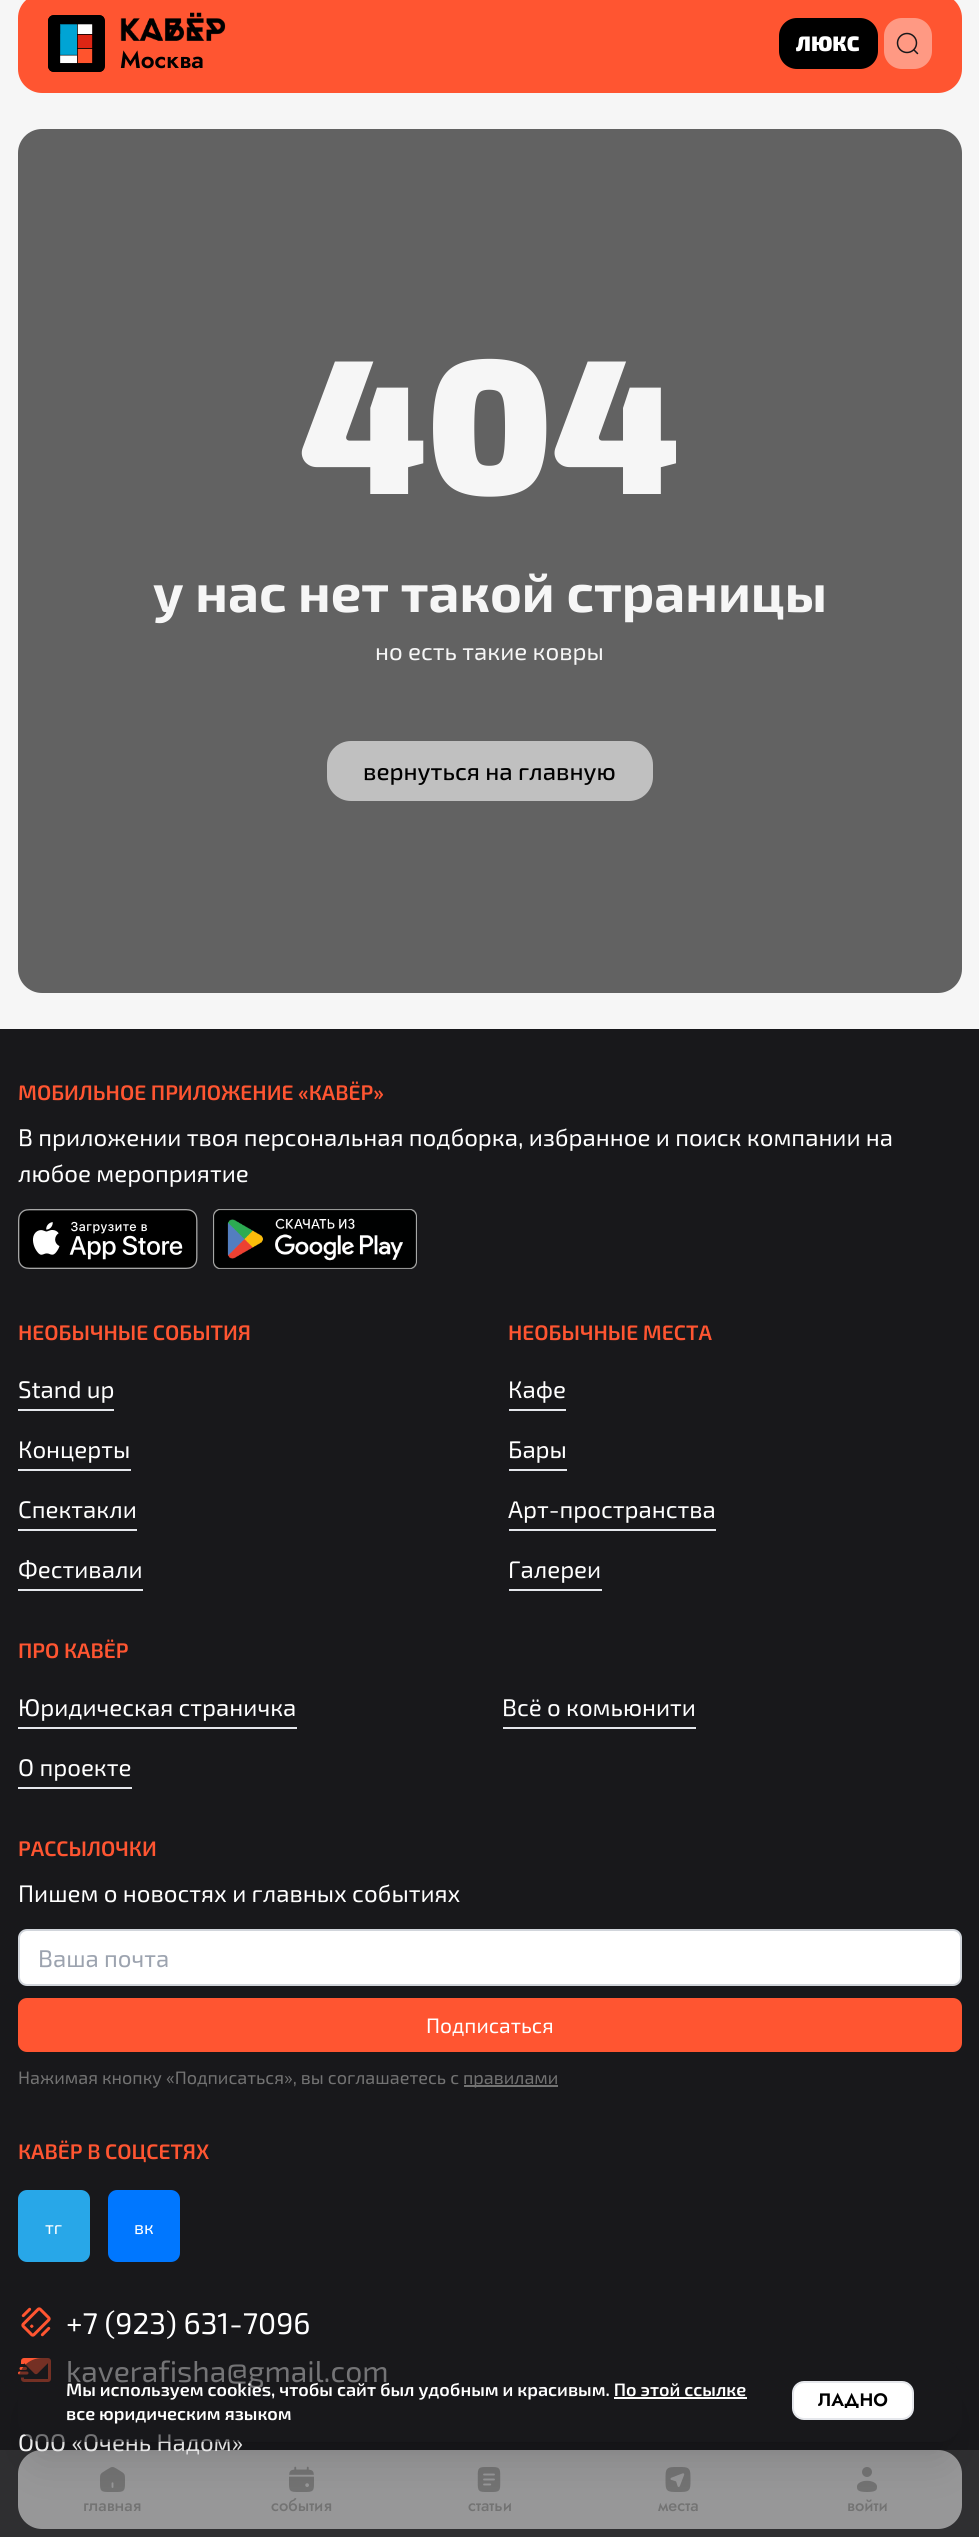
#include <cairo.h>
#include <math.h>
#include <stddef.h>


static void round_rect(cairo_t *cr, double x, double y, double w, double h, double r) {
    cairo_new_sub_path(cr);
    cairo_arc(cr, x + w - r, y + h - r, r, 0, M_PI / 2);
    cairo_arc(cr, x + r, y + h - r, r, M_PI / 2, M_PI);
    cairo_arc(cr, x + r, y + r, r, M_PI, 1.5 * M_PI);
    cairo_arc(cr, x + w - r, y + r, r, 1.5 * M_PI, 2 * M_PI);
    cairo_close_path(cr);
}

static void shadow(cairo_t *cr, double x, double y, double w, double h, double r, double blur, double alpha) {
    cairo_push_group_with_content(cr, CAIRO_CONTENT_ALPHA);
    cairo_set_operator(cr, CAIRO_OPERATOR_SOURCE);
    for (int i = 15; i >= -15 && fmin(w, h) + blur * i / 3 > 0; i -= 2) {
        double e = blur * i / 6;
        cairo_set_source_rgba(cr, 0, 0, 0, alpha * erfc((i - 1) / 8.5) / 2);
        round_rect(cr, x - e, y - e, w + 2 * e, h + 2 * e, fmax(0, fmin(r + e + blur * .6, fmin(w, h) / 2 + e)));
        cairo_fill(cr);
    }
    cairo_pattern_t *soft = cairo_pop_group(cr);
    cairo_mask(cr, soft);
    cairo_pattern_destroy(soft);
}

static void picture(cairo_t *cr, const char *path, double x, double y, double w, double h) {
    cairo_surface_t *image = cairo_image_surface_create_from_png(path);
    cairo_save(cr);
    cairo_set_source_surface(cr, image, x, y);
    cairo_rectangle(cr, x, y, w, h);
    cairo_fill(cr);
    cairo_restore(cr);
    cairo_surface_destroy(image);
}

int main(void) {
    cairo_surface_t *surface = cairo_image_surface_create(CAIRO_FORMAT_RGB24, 979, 2537);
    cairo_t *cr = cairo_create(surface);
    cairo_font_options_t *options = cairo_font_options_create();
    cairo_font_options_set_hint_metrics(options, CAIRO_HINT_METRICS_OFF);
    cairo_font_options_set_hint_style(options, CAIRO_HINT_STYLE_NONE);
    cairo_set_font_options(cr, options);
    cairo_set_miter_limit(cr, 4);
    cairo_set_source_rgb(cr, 0.961, 0.961, 0.961);
    cairo_paint(cr);
    cairo_set_source_rgb(cr, 1, 0.333, 0.192);
    round_rect(cr, 18, -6, 944, 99, 24);
    cairo_fill(cr);
    cairo_set_source_rgb(cr, 0, 0, 0);
    round_rect(cr, 779, 18, 99, 51, 18);
    cairo_fill(cr);
    cairo_select_font_face(cr, "Exo 2 Black", CAIRO_FONT_SLANT_NORMAL, CAIRO_FONT_WEIGHT_NORMAL);
    cairo_set_font_size(cr, 21);
    cairo_set_source_rgb(cr, 1, 1, 1);
    cairo_move_to(cr, 796, 51);
    cairo_show_text(cr, "ЛЮКС");
    cairo_set_source_rgb(cr, 1, 0.6, 0.514);
    round_rect(cr, 884, 18, 48, 51, 18);
    cairo_fill(cr);
    cairo_arc(cr, 907, 43, 9.5, 0, 2 * M_PI);
    cairo_set_source_rgb(cr, 0.094, 0.094, 0.106);
    cairo_set_line_width(cr, 1.5);
    cairo_stroke(cr);
    cairo_new_path(cr);
    cairo_move_to(cr, 914, 50);
    cairo_line_to(cr, 917.5, 53.5);
    cairo_set_line_cap(cr, CAIRO_LINE_CAP_ROUND);
    cairo_stroke(cr);
    cairo_set_source_rgb(cr, 0, 0, 0);
    round_rect(cr, 48, 15, 57, 57, 6);
    cairo_fill(cr);
    picture(cr, "img1.png", 48, 15, 57, 57);
    picture(cr, "img2.png", 120, 12, 106, 29);
    cairo_select_font_face(cr, "Jost SemiBold", CAIRO_FONT_SLANT_NORMAL, CAIRO_FONT_WEIGHT_NORMAL);
    cairo_set_font_size(cr, 24);
    cairo_move_to(cr, 120, 68);
    cairo_show_text(cr, "Москва");
    cairo_set_source_rgb(cr, 0.384, 0.384, 0.384);
    round_rect(cr, 18, 129, 944, 864, 24);
    cairo_fill(cr);
    cairo_select_font_face(cr, "Exo 2 Black", CAIRO_FONT_SLANT_NORMAL, CAIRO_FONT_WEIGHT_NORMAL);
    cairo_set_font_size(cr, 192);
    cairo_set_source_rgb(cr, 0.961, 0.961, 0.961);
    cairo_move_to(cr, 300, 494);
    cairo_show_text(cr, "404");
    cairo_select_font_face(cr, "Exo 2", CAIRO_FONT_SLANT_NORMAL, CAIRO_FONT_WEIGHT_BOLD);
    cairo_set_font_size(cr, 54);
    cairo_move_to(cr, 153, 612);
    cairo_show_text(cr, "у нас нет такой страницы");
    cairo_select_font_face(cr, "Exo 2", CAIRO_FONT_SLANT_NORMAL, CAIRO_FONT_WEIGHT_NORMAL);
    cairo_set_font_size(cr, 24);
    cairo_move_to(cr, 375, 660);
    cairo_show_text(cr, "но есть такие ковры");
    cairo_set_source_rgb(cr, 0.753, 0.753, 0.753);
    round_rect(cr, 327, 741, 326, 60, 24);
    cairo_fill(cr);
    cairo_select_font_face(cr, "Exo 2 Medium", CAIRO_FONT_SLANT_NORMAL, CAIRO_FONT_WEIGHT_NORMAL);
    cairo_set_source_rgb(cr, 0, 0, 0);
    cairo_move_to(cr, 363, 780);
    cairo_show_text(cr, "вернуться на главную");
    cairo_set_source_rgb(cr, 0.094, 0.094, 0.106);
    cairo_rectangle(cr, 0, 1029, 979, 1508);
    cairo_fill(cr);
    cairo_select_font_face(cr, "Exo 2 SemiBold", CAIRO_FONT_SLANT_NORMAL, CAIRO_FONT_WEIGHT_NORMAL);
    cairo_set_font_size(cr, 21);
    cairo_set_source_rgb(cr, 1, 0.333, 0.192);
    cairo_move_to(cr, 18, 1100);
    cairo_show_text(cr, "МОБИЛЬНОЕ ПРИЛОЖЕНИЕ «КАВЁР»");
    cairo_select_font_face(cr, "Exo 2", CAIRO_FONT_SLANT_NORMAL, CAIRO_FONT_WEIGHT_NORMAL);
    cairo_set_font_size(cr, 24);
    cairo_set_source_rgb(cr, 1, 1, 1);
    cairo_move_to(cr, 18, 1146);
    cairo_show_text(cr, "В приложении твоя персональная подборка, избранное и поиск компании на");
    cairo_move_to(cr, 18, 1182);
    cairo_show_text(cr, "любое мероприятие");
    picture(cr, "img3.png", 18, 1209, 180, 60);
    picture(cr, "img4.png", 213, 1209, 204, 60);
    cairo_select_font_face(cr, "Exo 2 SemiBold", CAIRO_FONT_SLANT_NORMAL, CAIRO_FONT_WEIGHT_NORMAL);
    cairo_set_font_size(cr, 21);
    cairo_set_source_rgb(cr, 1, 0.333, 0.192);
    cairo_move_to(cr, 18, 1340);
    cairo_show_text(cr, "НЕОБЫЧНЫЕ СОБЫТИЯ");
    cairo_select_font_face(cr, "Exo 2", CAIRO_FONT_SLANT_NORMAL, CAIRO_FONT_WEIGHT_NORMAL);
    cairo_set_font_size(cr, 24);
    cairo_set_source_rgb(cr, 1, 1, 1);
    cairo_move_to(cr, 18, 1398);
    cairo_show_text(cr, "Stand up");
    cairo_set_source_rgb(cr, 0.898, 0.906, 0.922);
    cairo_rectangle(cr, 18, 1409, 96, 2);
    cairo_fill(cr);
    cairo_set_source_rgb(cr, 1, 1, 1);
    cairo_move_to(cr, 18, 1458);
    cairo_show_text(cr, "Концерты");
    cairo_set_source_rgb(cr, 0.898, 0.906, 0.922);
    cairo_rectangle(cr, 18, 1469, 113, 2);
    cairo_fill(cr);
    cairo_set_source_rgb(cr, 1, 1, 1);
    cairo_move_to(cr, 18, 1518);
    cairo_show_text(cr, "Спектакли");
    cairo_set_source_rgb(cr, 0.898, 0.906, 0.922);
    cairo_rectangle(cr, 18, 1529, 119, 2);
    cairo_fill(cr);
    cairo_set_source_rgb(cr, 1, 1, 1);
    cairo_move_to(cr, 18, 1578);
    cairo_show_text(cr, "Фестивали");
    cairo_set_source_rgb(cr, 0.898, 0.906, 0.922);
    cairo_rectangle(cr, 18, 1589, 125, 2);
    cairo_fill(cr);
    cairo_select_font_face(cr, "Exo 2 SemiBold", CAIRO_FONT_SLANT_NORMAL, CAIRO_FONT_WEIGHT_NORMAL);
    cairo_set_font_size(cr, 21);
    cairo_set_source_rgb(cr, 1, 0.333, 0.192);
    cairo_move_to(cr, 508, 1340);
    cairo_show_text(cr, "НЕОБЫЧНЫЕ МЕСТА");
    cairo_select_font_face(cr, "Exo 2", CAIRO_FONT_SLANT_NORMAL, CAIRO_FONT_WEIGHT_NORMAL);
    cairo_set_font_size(cr, 24);
    cairo_set_source_rgb(cr, 1, 1, 1);
    cairo_move_to(cr, 508, 1398);
    cairo_show_text(cr, "Кафе");
    cairo_set_source_rgb(cr, 0.898, 0.906, 0.922);
    cairo_rectangle(cr, 509, 1409, 57, 2);
    cairo_fill(cr);
    cairo_set_source_rgb(cr, 1, 1, 1);
    cairo_move_to(cr, 508, 1458);
    cairo_show_text(cr, "Бары");
    cairo_set_source_rgb(cr, 0.898, 0.906, 0.922);
    cairo_rectangle(cr, 509, 1469, 58, 2);
    cairo_fill(cr);
    cairo_set_source_rgb(cr, 1, 1, 1);
    cairo_move_to(cr, 508, 1518);
    cairo_show_text(cr, "Арт-пространства");
    cairo_set_source_rgb(cr, 0.898, 0.906, 0.922);
    cairo_rectangle(cr, 509, 1529, 207, 2);
    cairo_fill(cr);
    cairo_set_source_rgb(cr, 1, 1, 1);
    cairo_move_to(cr, 508, 1578);
    cairo_show_text(cr, "Галереи");
    cairo_set_source_rgb(cr, 0.898, 0.906, 0.922);
    cairo_rectangle(cr, 509, 1589, 93, 2);
    cairo_fill(cr);
    cairo_select_font_face(cr, "Exo 2 SemiBold", CAIRO_FONT_SLANT_NORMAL, CAIRO_FONT_WEIGHT_NORMAL);
    cairo_set_font_size(cr, 21);
    cairo_set_source_rgb(cr, 1, 0.333, 0.192);
    cairo_move_to(cr, 18, 1658);
    cairo_show_text(cr, "ПРО КАВЁР");
    cairo_select_font_face(cr, "Exo 2", CAIRO_FONT_SLANT_NORMAL, CAIRO_FONT_WEIGHT_NORMAL);
    cairo_set_font_size(cr, 24);
    cairo_set_source_rgb(cr, 1, 1, 1);
    cairo_move_to(cr, 18, 1716);
    cairo_show_text(cr, "Юридическая страничка");
    cairo_set_source_rgb(cr, 0.898, 0.906, 0.922);
    cairo_rectangle(cr, 18, 1727, 279, 2);
    cairo_fill(cr);
    cairo_set_source_rgb(cr, 1, 1, 1);
    cairo_move_to(cr, 502, 1716);
    cairo_show_text(cr, "Всё о комьюнити");
    cairo_set_source_rgb(cr, 0.898, 0.906, 0.922);
    cairo_rectangle(cr, 503, 1727, 193, 2);
    cairo_fill(cr);
    cairo_set_source_rgb(cr, 1, 1, 1);
    cairo_move_to(cr, 18, 1776);
    cairo_show_text(cr, "О проекте");
    cairo_set_source_rgb(cr, 0.898, 0.906, 0.922);
    cairo_rectangle(cr, 18, 1787, 114, 2);
    cairo_fill(cr);
    cairo_select_font_face(cr, "Exo 2 SemiBold", CAIRO_FONT_SLANT_NORMAL, CAIRO_FONT_WEIGHT_NORMAL);
    cairo_set_font_size(cr, 21);
    cairo_set_source_rgb(cr, 1, 0.333, 0.192);
    cairo_move_to(cr, 18, 1856);
    cairo_show_text(cr, "РАССЫЛОЧКИ");
    cairo_select_font_face(cr, "Exo 2", CAIRO_FONT_SLANT_NORMAL, CAIRO_FONT_WEIGHT_NORMAL);
    cairo_set_font_size(cr, 24);
    cairo_set_source_rgb(cr, 1, 1, 1);
    cairo_move_to(cr, 18, 1902);
    cairo_show_text(cr, "Пишем о новостях и главных событиях");
    round_rect(cr, 19, 1930, 942, 55, 8);
    cairo_fill_preserve(cr);
    cairo_set_source_rgb(cr, 0.82, 0.835, 0.859);
    cairo_set_line_width(cr, 2);
    cairo_set_line_cap(cr, CAIRO_LINE_CAP_BUTT);
    cairo_stroke(cr);
    cairo_set_source_rgb(cr, 0.612, 0.639, 0.686);
    cairo_move_to(cr, 38, 1967);
    cairo_show_text(cr, "Ваша почта");
    cairo_set_source_rgb(cr, 1, 0.333, 0.192);
    round_rect(cr, 18, 1998, 944, 54, 9);
    cairo_fill(cr);
    cairo_set_font_size(cr, 21);
    cairo_set_source_rgb(cr, 1, 1, 1);
    cairo_move_to(cr, 426, 2033);
    cairo_show_text(cr, "Подписаться");
    cairo_set_font_size(cr, 18);
    cairo_set_source_rgb(cr, 0.451, 0.451, 0.451);
    cairo_move_to(cr, 18, 2084);
    cairo_show_text(cr, "Нажимая кнопку «Подписаться», вы соглашаетесь c");
    cairo_rectangle(cr, 464, 2085, 94, 2);
    cairo_fill(cr);
    cairo_move_to(cr, 463, 2084);
    cairo_show_text(cr, "правилами");
    cairo_select_font_face(cr, "Exo 2 SemiBold", CAIRO_FONT_SLANT_NORMAL, CAIRO_FONT_WEIGHT_NORMAL);
    cairo_set_font_size(cr, 21);
    cairo_set_source_rgb(cr, 1, 0.333, 0.192);
    cairo_move_to(cr, 18, 2159);
    cairo_show_text(cr, "КАВЁР В СОЦСЕТЯХ");
    cairo_set_source_rgb(cr, 0.157, 0.655, 0.91);
    round_rect(cr, 18, 2190, 72, 72, 9);
    cairo_fill(cr);
    cairo_select_font_face(cr, "Exo 2", CAIRO_FONT_SLANT_NORMAL, CAIRO_FONT_WEIGHT_NORMAL);
    cairo_set_font_size(cr, 18);
    cairo_set_source_rgb(cr, 1, 1, 1);
    cairo_move_to(cr, 45, 2234);
    cairo_show_text(cr, "тг");
    cairo_set_source_rgb(cr, 0, 0.467, 1);
    round_rect(cr, 108, 2190, 72, 72, 9);
    cairo_fill(cr);
    cairo_set_source_rgb(cr, 1, 1, 1);
    cairo_move_to(cr, 134, 2234);
    cairo_show_text(cr, "вк");
    picture(cr, "img5.png", 21, 2307, 30, 30);
    cairo_set_font_size(cr, 30);
    cairo_move_to(cr, 66, 2334);
    cairo_show_text(cr, "+7 (923) 631-7096");
    picture(cr, "img6.png", 18, 2358, 33, 24);
    cairo_move_to(cr, 66, 2382);
    cairo_show_text(cr, "kaverafisha@gmail.com");
    cairo_set_font_size(cr, 24);
    cairo_move_to(cr, 18, 2451);
    cairo_show_text(cr, "ООО «Очень Надом»");
    cairo_set_source_rgba(cr, 1, 1, 1, 0.1);
    cairo_rectangle(cr, 0, 2450, 979, 87);
    cairo_fill(cr);
    cairo_set_source_rgba(cr, 1, 1, 1, 0.5);
    round_rect(cr, 18, 2450, 944, 79, 24);
    cairo_fill(cr);
    picture(cr, "img7.png", 100, 2467, 25, 25);
    picture(cr, "img8.png", 289, 2466, 25, 26);
    picture(cr, "img9.png", 477, 2467, 24, 25);
    picture(cr, "img10.png", 665, 2467, 26, 25);
    picture(cr, "img11.png", 857, 2467, 20, 25);
    cairo_save(cr);
    cairo_set_fill_rule(cr, CAIRO_FILL_RULE_EVEN_ODD);
    cairo_new_path(cr);
    cairo_move_to(cr, 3, 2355);
    cairo_line_to(cr, 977, 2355);
    cairo_line_to(cr, 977, 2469);
    cairo_line_to(cr, 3, 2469);
    cairo_close_path(cr);
    cairo_move_to(cr, 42, 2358);
    cairo_line_to(cr, 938, 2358);
    cairo_curve_to(cr, 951.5, 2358, 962, 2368.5, 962, 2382);
    cairo_line_to(cr, 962, 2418);
    cairo_curve_to(cr, 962, 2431.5, 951.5, 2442, 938, 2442);
    cairo_line_to(cr, 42, 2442);
    cairo_curve_to(cr, 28.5, 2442, 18, 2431.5, 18, 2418);
    cairo_line_to(cr, 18, 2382);
    cairo_curve_to(cr, 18, 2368.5, 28.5, 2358, 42, 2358);
    cairo_close_path(cr);
    cairo_clip(cr);
    cairo_set_source_rgb(cr, 0, 0, 0);
    shadow(cr, 27, 2379, 926, 66, 15, 7.5, 0.1);
    cairo_restore(cr);
    cairo_save(cr);
    cairo_set_fill_rule(cr, CAIRO_FILL_RULE_EVEN_ODD);
    cairo_new_path(cr);
    cairo_move_to(cr, 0, 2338);
    cairo_line_to(cr, 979, 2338);
    cairo_line_to(cr, 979, 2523);
    cairo_line_to(cr, 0, 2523);
    cairo_close_path(cr);
    cairo_move_to(cr, 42, 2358);
    cairo_line_to(cr, 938, 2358);
    cairo_curve_to(cr, 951.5, 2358, 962, 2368.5, 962, 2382);
    cairo_line_to(cr, 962, 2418);
    cairo_curve_to(cr, 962, 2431.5, 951.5, 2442, 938, 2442);
    cairo_line_to(cr, 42, 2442);
    cairo_curve_to(cr, 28.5, 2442, 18, 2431.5, 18, 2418);
    cairo_line_to(cr, 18, 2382);
    cairo_curve_to(cr, 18, 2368.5, 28.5, 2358, 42, 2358);
    cairo_close_path(cr);
    cairo_clip(cr);
    cairo_set_source_rgb(cr, 0, 0, 0);
    shadow(cr, 26, 2396, 928, 69, 17, 19, 0.1);
    cairo_restore(cr);
    cairo_set_source_rgba(cr, 0.094, 0.094, 0.106, 0.6);
    round_rect(cr, 18, 2358, 944, 84, 24);
    cairo_fill(cr);
    cairo_select_font_face(cr, "Exo 2 SemiBold", CAIRO_FONT_SLANT_NORMAL, CAIRO_FONT_WEIGHT_NORMAL);
    cairo_set_font_size(cr, 18);
    cairo_set_source_rgb(cr, 1, 1, 1);
    cairo_move_to(cr, 66, 2396);
    cairo_show_text(cr, "Мы используем cookies, чтобы сайт был удобным и красивым. По этой ссылке");
    cairo_rectangle(cr, 614, 2397, 133, 2);
    cairo_fill(cr);
    cairo_move_to(cr, 66, 2420);
    cairo_show_text(cr, "все юридическим языком");
    round_rect(cr, 793, 2382, 120, 37, 11);
    cairo_fill_preserve(cr);
    cairo_set_source_rgb(cr, 0.898, 0.906, 0.922);
    cairo_stroke(cr);
    cairo_select_font_face(cr, "Jost SemiBold", CAIRO_FONT_SLANT_NORMAL, CAIRO_FONT_WEIGHT_NORMAL);
    cairo_set_source_rgb(cr, 0, 0, 0);
    cairo_move_to(cr, 818, 2406);
    cairo_show_text(cr, "ЛАДНО");
    cairo_select_font_face(cr, "Jost Medium", CAIRO_FONT_SLANT_NORMAL, CAIRO_FONT_WEIGHT_NORMAL);
    cairo_set_font_size(cr, 16.5);
    cairo_set_source_rgb(cr, 0.451, 0.451, 0.451);
    cairo_move_to(cr, 83, 2511);
    cairo_show_text(cr, "главная");
    cairo_move_to(cr, 271, 2511);
    cairo_show_text(cr, "события");
    cairo_move_to(cr, 468, 2511);
    cairo_show_text(cr, "статьи");
    cairo_move_to(cr, 658, 2511);
    cairo_show_text(cr, "места");
    cairo_move_to(cr, 847, 2511);
    cairo_show_text(cr, "войти");
    cairo_surface_write_to_png(surface, "page.png");
    cairo_font_options_destroy(options);
    cairo_destroy(cr);
    cairo_surface_destroy(surface);
    return 0;
}
